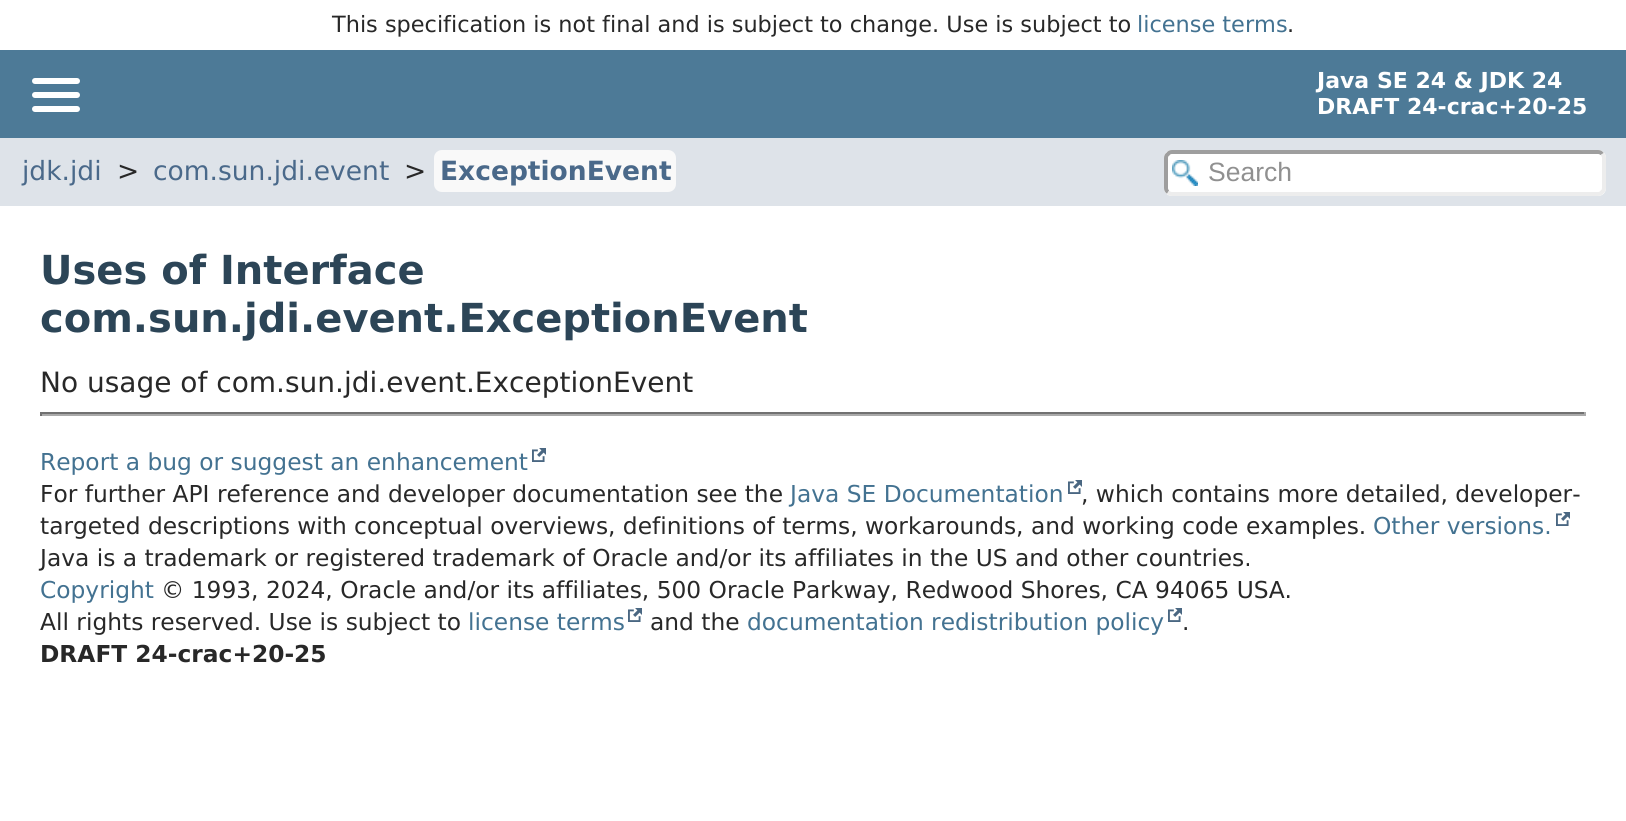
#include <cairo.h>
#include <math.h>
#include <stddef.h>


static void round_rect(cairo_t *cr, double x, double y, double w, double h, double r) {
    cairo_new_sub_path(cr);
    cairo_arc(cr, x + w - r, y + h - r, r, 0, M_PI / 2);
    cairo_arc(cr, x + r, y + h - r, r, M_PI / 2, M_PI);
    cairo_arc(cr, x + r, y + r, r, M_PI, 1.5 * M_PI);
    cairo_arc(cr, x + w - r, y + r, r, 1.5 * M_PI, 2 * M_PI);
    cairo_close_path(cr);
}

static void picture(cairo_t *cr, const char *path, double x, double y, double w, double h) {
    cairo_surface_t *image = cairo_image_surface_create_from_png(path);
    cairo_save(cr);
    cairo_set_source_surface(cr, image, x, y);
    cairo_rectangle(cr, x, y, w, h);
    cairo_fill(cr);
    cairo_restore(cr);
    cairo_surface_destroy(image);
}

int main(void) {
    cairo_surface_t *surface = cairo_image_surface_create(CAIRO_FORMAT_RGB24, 1626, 821);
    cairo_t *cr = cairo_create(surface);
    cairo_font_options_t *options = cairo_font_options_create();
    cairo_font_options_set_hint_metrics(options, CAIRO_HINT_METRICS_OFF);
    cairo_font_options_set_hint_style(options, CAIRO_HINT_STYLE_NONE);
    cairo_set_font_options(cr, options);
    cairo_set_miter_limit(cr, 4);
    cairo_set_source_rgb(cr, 1, 1, 1);
    cairo_paint(cr);
    cairo_select_font_face(cr, "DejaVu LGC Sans", CAIRO_FONT_SLANT_NORMAL, CAIRO_FONT_WEIGHT_NORMAL);
    cairo_set_font_size(cr, 22.4);
    cairo_set_source_rgb(cr, 0.157, 0.157, 0.157);
    cairo_move_to(cr, 332, 32);
    cairo_show_text(cr, "This specification is not final and is subject to change. Use is subject to");
    cairo_set_source_rgb(cr, 0.263, 0.447, 0.569);
    cairo_move_to(cr, 1137, 32);
    cairo_show_text(cr, "license terms");
    cairo_set_source_rgb(cr, 0.157, 0.157, 0.157);
    cairo_move_to(cr, 1287, 32);
    cairo_show_text(cr, ".");
    cairo_set_source_rgb(cr, 0.302, 0.478, 0.592);
    cairo_rectangle(cr, 0, 50, 1626, 88);
    cairo_fill(cr);
    cairo_set_source_rgb(cr, 1, 1, 1);
    round_rect(cr, 32, 78, 48, 6, 3);
    cairo_fill(cr);
    round_rect(cr, 32, 92, 48, 6, 3);
    cairo_fill(cr);
    round_rect(cr, 32, 106, 48, 6, 3);
    cairo_fill(cr);
    cairo_select_font_face(cr, "DejaVu LGC Sans", CAIRO_FONT_SLANT_NORMAL, CAIRO_FONT_WEIGHT_BOLD);
    cairo_set_font_size(cr, 22);
    cairo_move_to(cr, 1317, 88);
    cairo_show_text(cr, "Java SE 24 & JDK 24");
    cairo_move_to(cr, 1317, 114);
    cairo_show_text(cr, "DRAFT 24-crac+20-25");
    cairo_set_source_rgb(cr, 0.871, 0.89, 0.914);
    cairo_rectangle(cr, 0, 138, 1626, 68);
    cairo_fill(cr);
    cairo_select_font_face(cr, "DejaVu LGC Sans", CAIRO_FONT_SLANT_NORMAL, CAIRO_FONT_WEIGHT_NORMAL);
    cairo_set_font_size(cr, 26.5);
    cairo_set_source_rgb(cr, 0.29, 0.412, 0.541);
    cairo_move_to(cr, 22, 180);
    cairo_show_text(cr, "jdk.jdi");
    cairo_set_source_rgb(cr, 0.157, 0.157, 0.157);
    cairo_move_to(cr, 117, 180);
    cairo_show_text(cr, ">");
    cairo_set_source_rgb(cr, 0.29, 0.412, 0.541);
    cairo_move_to(cr, 153, 180);
    cairo_show_text(cr, "com.sun.jdi.event");
    cairo_set_source_rgb(cr, 0.157, 0.157, 0.157);
    cairo_move_to(cr, 404, 180);
    cairo_show_text(cr, ">");
    cairo_set_source_rgb(cr, 0.973, 0.973, 0.973);
    round_rect(cr, 434, 150, 242, 42, 8);
    cairo_fill(cr);
    cairo_select_font_face(cr, "DejaVu LGC Sans", CAIRO_FONT_SLANT_NORMAL, CAIRO_FONT_WEIGHT_BOLD);
    cairo_set_source_rgb(cr, 0.29, 0.412, 0.541);
    cairo_move_to(cr, 440, 180);
    cairo_show_text(cr, "ExceptionEvent");
    cairo_set_source_rgb(cr, 1, 1, 1);
    round_rect(cr, 1164, 150, 442, 46, 8);
    cairo_fill(cr);
    picture(cr, "img1.png", 1172, 160, 26, 26);
    cairo_new_path(cr);
    cairo_move_to(cr, 1602, 154);
    cairo_curve_to(cr, 1603.5, 155, 1604, 156.5, 1604, 158);
    cairo_line_to(cr, 1604, 188);
    cairo_curve_to(cr, 1604, 189.5, 1603.5, 191, 1602, 192);
    cairo_curve_to(cr, 1601, 193.5, 1599.5, 194, 1598, 194);
    cairo_line_to(cr, 1172, 194);
    cairo_curve_to(cr, 1170.5, 194, 1169, 193.5, 1168, 192);
    cairo_set_source_rgb(cr, 0.929, 0.929, 0.929);
    cairo_set_line_width(cr, 4);
    cairo_stroke(cr);
    cairo_new_path(cr);
    cairo_move_to(cr, 1168, 192);
    cairo_curve_to(cr, 1166.5, 191, 1166, 189.5, 1166, 188);
    cairo_line_to(cr, 1166, 158);
    cairo_curve_to(cr, 1166, 156.5, 1166.5, 155, 1168, 154);
    cairo_curve_to(cr, 1169, 152.5, 1170.5, 152, 1172, 152);
    cairo_line_to(cr, 1598, 152);
    cairo_curve_to(cr, 1599.5, 152, 1601, 152.5, 1602, 154);
    cairo_set_source_rgb(cr, 0.62, 0.62, 0.62);
    cairo_stroke(cr);
    cairo_select_font_face(cr, "Liberation Sans", CAIRO_FONT_SLANT_NORMAL, CAIRO_FONT_WEIGHT_NORMAL);
    cairo_set_source_rgb(cr, 0.565, 0.565, 0.565);
    cairo_move_to(cr, 1208, 181);
    cairo_show_text(cr, "Search");
    cairo_select_font_face(cr, "DejaVu LGC Sans", CAIRO_FONT_SLANT_NORMAL, CAIRO_FONT_WEIGHT_BOLD);
    cairo_set_font_size(cr, 40);
    cairo_set_source_rgb(cr, 0.173, 0.271, 0.341);
    cairo_move_to(cr, 40, 284);
    cairo_show_text(cr, "Uses of Interface");
    cairo_move_to(cr, 40, 332);
    cairo_show_text(cr, "com.sun.jdi.event.ExceptionEvent");
    cairo_select_font_face(cr, "DejaVu LGC Sans", CAIRO_FONT_SLANT_NORMAL, CAIRO_FONT_WEIGHT_NORMAL);
    cairo_set_font_size(cr, 28);
    cairo_set_source_rgb(cr, 0.157, 0.157, 0.157);
    cairo_move_to(cr, 40, 392);
    cairo_show_text(cr, "No usage of com.sun.jdi.event.ExceptionEvent");
    cairo_set_source_rgb(cr, 0.443, 0.443, 0.443);
    cairo_rectangle(cr, 40, 412, 1546, 2);
    cairo_fill(cr);
    cairo_set_source_rgb(cr, 0.667, 0.667, 0.667);
    cairo_rectangle(cr, 1584, 412, 2, 4);
    cairo_fill(cr);
    cairo_rectangle(cr, 40, 414, 1546, 2);
    cairo_fill(cr);
    cairo_set_source_rgb(cr, 0.443, 0.443, 0.443);
    cairo_rectangle(cr, 40, 412, 2, 4);
    cairo_fill(cr);
    cairo_set_font_size(cr, 23.33);
    cairo_set_source_rgb(cr, 0.263, 0.447, 0.569);
    cairo_move_to(cr, 40, 470);
    cairo_show_text(cr, "Report a bug or suggest an enhancement");
    picture(cr, "img2.png", 532, 448, 14, 14);
    cairo_set_source_rgb(cr, 0.157, 0.157, 0.157);
    cairo_move_to(cr, 40, 502);
    cairo_show_text(cr, "For further API reference and developer documentation see the");
    cairo_set_source_rgb(cr, 0.263, 0.447, 0.569);
    cairo_move_to(cr, 790, 502);
    cairo_show_text(cr, "Java SE Documentation");
    picture(cr, "img2.png", 1068, 480, 14, 14);
    cairo_set_source_rgb(cr, 0.157, 0.157, 0.157);
    cairo_move_to(cr, 1081, 502);
    cairo_show_text(cr, ", which contains more detailed, developer-");
    cairo_move_to(cr, 40, 534);
    cairo_show_text(cr, "targeted descriptions with conceptual overviews, definitions of terms, workarounds, and working code examples.");
    cairo_set_source_rgb(cr, 0.263, 0.447, 0.569);
    cairo_move_to(cr, 1373, 534);
    cairo_show_text(cr, "Other versions.");
    picture(cr, "img2.png", 1556, 512, 14, 14);
    cairo_set_source_rgb(cr, 0.157, 0.157, 0.157);
    cairo_move_to(cr, 40, 566);
    cairo_show_text(cr, "Java is a trademark or registered trademark of Oracle and/or its affiliates in the US and other countries.");
    cairo_set_source_rgb(cr, 0.263, 0.447, 0.569);
    cairo_move_to(cr, 40, 598);
    cairo_show_text(cr, "Copyright");
    cairo_set_source_rgb(cr, 0.157, 0.157, 0.157);
    cairo_move_to(cr, 161, 598);
    cairo_show_text(cr, "© 1993, 2024, Oracle and/or its affiliates, 500 Oracle Parkway, Redwood Shores, CA 94065 USA.");
    cairo_move_to(cr, 40, 630);
    cairo_show_text(cr, "All rights reserved. Use is subject to");
    cairo_set_source_rgb(cr, 0.263, 0.447, 0.569);
    cairo_move_to(cr, 468, 630);
    cairo_show_text(cr, "license terms");
    picture(cr, "img2.png", 628, 608, 14, 14);
    cairo_set_source_rgb(cr, 0.157, 0.157, 0.157);
    cairo_move_to(cr, 650, 630);
    cairo_show_text(cr, "and the");
    cairo_set_source_rgb(cr, 0.263, 0.447, 0.569);
    cairo_move_to(cr, 747, 630);
    cairo_show_text(cr, "documentation redistribution policy");
    picture(cr, "img2.png", 1168, 608, 14, 14);
    cairo_set_source_rgb(cr, 0.157, 0.157, 0.157);
    cairo_move_to(cr, 1182, 630);
    cairo_show_text(cr, ".");
    cairo_select_font_face(cr, "DejaVu LGC Sans", CAIRO_FONT_SLANT_NORMAL, CAIRO_FONT_WEIGHT_BOLD);
    cairo_move_to(cr, 40, 662);
    cairo_show_text(cr, "DRAFT 24-crac+20-25");
    cairo_surface_write_to_png(surface, "page.png");
    cairo_font_options_destroy(options);
    cairo_destroy(cr);
    cairo_surface_destroy(surface);
    return 0;
}
